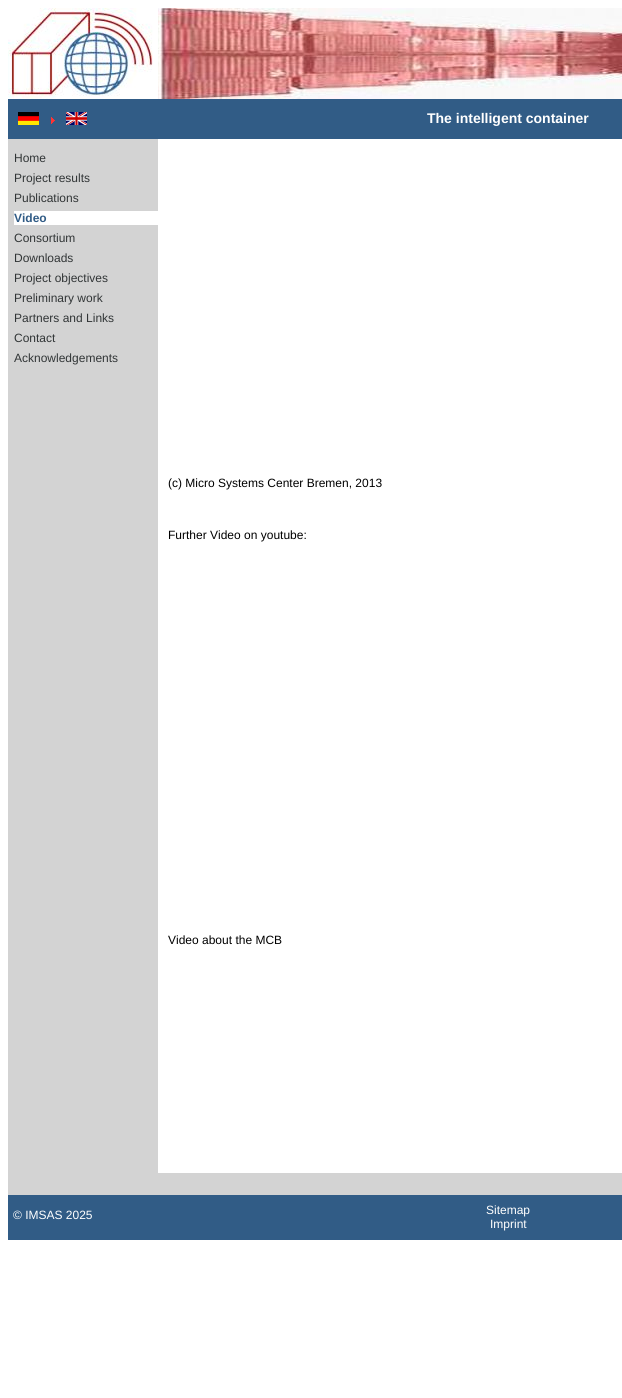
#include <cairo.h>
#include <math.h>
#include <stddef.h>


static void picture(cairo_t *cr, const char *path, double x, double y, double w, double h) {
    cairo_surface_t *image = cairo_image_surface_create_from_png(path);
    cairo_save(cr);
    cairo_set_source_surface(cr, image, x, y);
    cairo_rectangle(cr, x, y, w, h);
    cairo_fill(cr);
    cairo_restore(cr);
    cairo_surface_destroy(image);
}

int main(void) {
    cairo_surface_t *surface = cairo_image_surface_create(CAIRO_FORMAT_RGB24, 622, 1398);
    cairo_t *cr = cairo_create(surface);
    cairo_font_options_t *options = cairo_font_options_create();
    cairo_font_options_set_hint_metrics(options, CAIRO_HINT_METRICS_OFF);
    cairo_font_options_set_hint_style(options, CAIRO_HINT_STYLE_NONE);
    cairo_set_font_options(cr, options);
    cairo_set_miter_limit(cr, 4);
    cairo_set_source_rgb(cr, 1, 1, 1);
    cairo_paint(cr);
    picture(cr, "img1.png", 8, 8, 145, 91);
    picture(cr, "img2.png", 158, 8, 464, 91);
    cairo_set_source_rgb(cr, 0.192, 0.361, 0.525);
    cairo_rectangle(cr, 8, 99, 614, 40);
    cairo_fill(cr);
    picture(cr, "img3.png", 18, 112, 21, 13);
    picture(cr, "img4.png", 51, 117, 4, 7);
    picture(cr, "img5.png", 66, 112, 21, 13);
    cairo_select_font_face(cr, "Liberation Sans", CAIRO_FONT_SLANT_NORMAL, CAIRO_FONT_WEIGHT_BOLD);
    cairo_set_font_size(cr, 14);
    cairo_set_source_rgb(cr, 1, 1, 1);
    cairo_move_to(cr, 427, 123);
    cairo_show_text(cr, "The intelligent container");
    cairo_set_source_rgb(cr, 0.827, 0.827, 0.827);
    cairo_rectangle(cr, 8, 139, 614, 1056);
    cairo_fill(cr);
    cairo_select_font_face(cr, "Liberation Sans", CAIRO_FONT_SLANT_NORMAL, CAIRO_FONT_WEIGHT_NORMAL);
    cairo_set_font_size(cr, 12);
    cairo_set_source_rgb(cr, 0.192, 0.208, 0.212);
    cairo_move_to(cr, 14, 162);
    cairo_show_text(cr, "Home");
    cairo_move_to(cr, 14, 182);
    cairo_show_text(cr, "Project results");
    cairo_move_to(cr, 14, 202);
    cairo_show_text(cr, "Publications");
    cairo_set_source_rgb(cr, 1, 1, 1);
    cairo_rectangle(cr, 14, 211, 144, 14);
    cairo_fill(cr);
    cairo_select_font_face(cr, "Liberation Sans", CAIRO_FONT_SLANT_NORMAL, CAIRO_FONT_WEIGHT_BOLD);
    cairo_set_source_rgb(cr, 0.192, 0.361, 0.525);
    cairo_move_to(cr, 14, 222);
    cairo_show_text(cr, "Video");
    cairo_select_font_face(cr, "Liberation Sans", CAIRO_FONT_SLANT_NORMAL, CAIRO_FONT_WEIGHT_NORMAL);
    cairo_set_source_rgb(cr, 0.192, 0.208, 0.212);
    cairo_move_to(cr, 14, 242);
    cairo_show_text(cr, "Consortium");
    cairo_move_to(cr, 14, 262);
    cairo_show_text(cr, "Downloads");
    cairo_move_to(cr, 14, 282);
    cairo_show_text(cr, "Project objectives");
    cairo_move_to(cr, 14, 302);
    cairo_show_text(cr, "Preliminary work");
    cairo_move_to(cr, 14, 322);
    cairo_show_text(cr, "Partners and Links");
    cairo_move_to(cr, 14, 342);
    cairo_show_text(cr, "Contact");
    cairo_move_to(cr, 14, 362);
    cairo_show_text(cr, "Acknowledgements");
    cairo_set_source_rgb(cr, 1, 1, 1);
    cairo_rectangle(cr, 158, 139, 464, 1034);
    cairo_fill(cr);
    cairo_set_source_rgb(cr, 0, 0, 0);
    cairo_move_to(cr, 168, 487);
    cairo_show_text(cr, "(c) Micro Systems Center Bremen, 2013");
    cairo_move_to(cr, 168, 539);
    cairo_show_text(cr, "Further Video on youtube:");
    cairo_move_to(cr, 168, 944);
    cairo_show_text(cr, "Video about the MCB");
    cairo_set_source_rgb(cr, 0.192, 0.361, 0.525);
    cairo_rectangle(cr, 8, 1195, 614, 45);
    cairo_fill(cr);
    cairo_set_source_rgb(cr, 1, 1, 1);
    cairo_move_to(cr, 13, 1219);
    cairo_show_text(cr, "© IMSAS 2025");
    cairo_move_to(cr, 486, 1214);
    cairo_show_text(cr, "Sitemap");
    cairo_move_to(cr, 490, 1228);
    cairo_show_text(cr, "Imprint");
    cairo_surface_write_to_png(surface, "page.png");
    cairo_font_options_destroy(options);
    cairo_destroy(cr);
    cairo_surface_destroy(surface);
    return 0;
}
